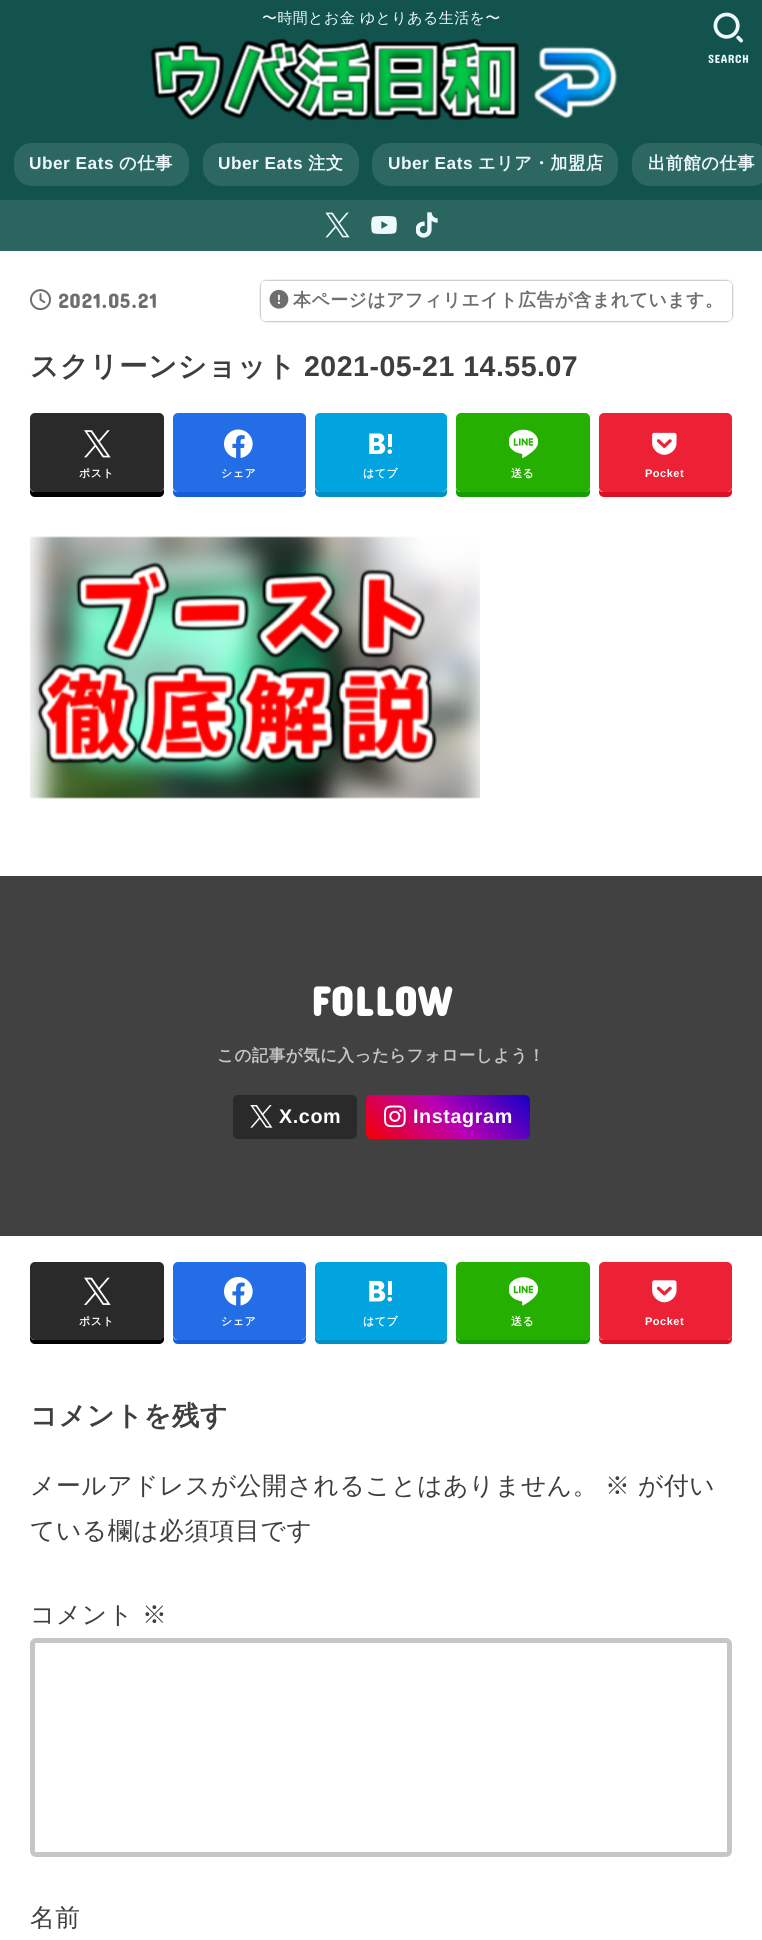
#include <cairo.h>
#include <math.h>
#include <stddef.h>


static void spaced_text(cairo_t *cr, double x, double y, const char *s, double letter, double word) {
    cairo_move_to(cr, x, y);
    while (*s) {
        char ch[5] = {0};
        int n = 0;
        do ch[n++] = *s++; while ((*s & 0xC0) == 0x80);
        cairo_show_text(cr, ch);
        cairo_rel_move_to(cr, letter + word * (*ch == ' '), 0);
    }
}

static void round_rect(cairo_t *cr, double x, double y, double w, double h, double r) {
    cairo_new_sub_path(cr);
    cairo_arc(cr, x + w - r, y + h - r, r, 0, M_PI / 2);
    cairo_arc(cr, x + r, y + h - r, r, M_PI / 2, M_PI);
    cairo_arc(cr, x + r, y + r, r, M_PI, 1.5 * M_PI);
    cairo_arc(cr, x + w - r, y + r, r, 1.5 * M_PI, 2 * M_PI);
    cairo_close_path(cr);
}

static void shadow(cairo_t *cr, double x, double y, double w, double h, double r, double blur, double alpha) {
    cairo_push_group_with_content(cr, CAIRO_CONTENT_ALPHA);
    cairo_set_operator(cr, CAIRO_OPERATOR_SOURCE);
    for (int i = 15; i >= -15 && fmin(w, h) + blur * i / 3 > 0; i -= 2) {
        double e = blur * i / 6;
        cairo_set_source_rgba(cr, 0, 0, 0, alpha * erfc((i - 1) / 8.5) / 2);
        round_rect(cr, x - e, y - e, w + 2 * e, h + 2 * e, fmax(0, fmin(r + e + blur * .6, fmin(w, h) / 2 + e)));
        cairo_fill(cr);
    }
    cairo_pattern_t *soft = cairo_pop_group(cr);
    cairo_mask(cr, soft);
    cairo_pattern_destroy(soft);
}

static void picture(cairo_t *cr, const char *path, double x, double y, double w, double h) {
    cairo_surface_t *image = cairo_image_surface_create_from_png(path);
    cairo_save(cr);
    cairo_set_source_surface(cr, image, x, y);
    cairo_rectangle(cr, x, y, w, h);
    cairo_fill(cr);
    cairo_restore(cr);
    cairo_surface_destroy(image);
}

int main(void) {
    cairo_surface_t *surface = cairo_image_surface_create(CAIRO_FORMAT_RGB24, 762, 1940);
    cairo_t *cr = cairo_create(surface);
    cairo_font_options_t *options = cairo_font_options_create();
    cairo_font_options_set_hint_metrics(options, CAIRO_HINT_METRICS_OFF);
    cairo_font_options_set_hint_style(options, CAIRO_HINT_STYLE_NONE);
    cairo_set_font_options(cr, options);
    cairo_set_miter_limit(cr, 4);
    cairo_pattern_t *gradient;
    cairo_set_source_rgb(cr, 0.071, 0.329, 0.302);
    cairo_paint(cr);
    cairo_select_font_face(cr, "WenQuanYi Zen Hei Medium", CAIRO_FONT_SLANT_NORMAL, CAIRO_FONT_WEIGHT_NORMAL);
    cairo_set_font_size(cr, 15);
    cairo_set_source_rgb(cr, 0.929, 0.976, 0.988);
    spaced_text(cr, 262, 23, "〜時間とお金 ゆとりある生活を〜", 0.4, 0);
    picture(cr, "img1.png", 150, 38, 468, 83);
    picture(cr, "img2.png", 713, 12, 30, 31);
    cairo_select_font_face(cr, "Concert One", CAIRO_FONT_SLANT_NORMAL, CAIRO_FONT_WEIGHT_NORMAL);
    cairo_set_font_size(cr, 12);
    spaced_text(cr, 708, 63, "SEARCH", 0.5, 0);
    cairo_set_source_rgb(cr, 0.173, 0.404, 0.38);
    round_rect(cr, 14, 143, 175, 43, 18);
    cairo_fill(cr);
    cairo_select_font_face(cr, "Liberation Sans", CAIRO_FONT_SLANT_NORMAL, CAIRO_FONT_WEIGHT_BOLD);
    cairo_set_font_size(cr, 17.25);
    cairo_set_source_rgb(cr, 0.929, 0.976, 0.988);
    spaced_text(cr, 29, 169, "Uber Eats", 0.5, 0);
    cairo_select_font_face(cr, "WenQuanYi Zen Hei", CAIRO_FONT_SLANT_NORMAL, CAIRO_FONT_WEIGHT_BOLD);
    spaced_text(cr, 119, 169, "の仕事", 0.5, 0);
    cairo_set_source_rgb(cr, 0.173, 0.404, 0.38);
    round_rect(cr, 203, 143, 156, 43, 18);
    cairo_fill(cr);
    cairo_select_font_face(cr, "Liberation Sans", CAIRO_FONT_SLANT_NORMAL, CAIRO_FONT_WEIGHT_BOLD);
    cairo_set_source_rgb(cr, 0.929, 0.976, 0.988);
    spaced_text(cr, 218, 169, "Uber Eats", 0.5, 0);
    cairo_select_font_face(cr, "WenQuanYi Zen Hei", CAIRO_FONT_SLANT_NORMAL, CAIRO_FONT_WEIGHT_BOLD);
    spaced_text(cr, 308, 169, "注文", 0.5, 0);
    cairo_set_source_rgb(cr, 0.173, 0.404, 0.38);
    round_rect(cr, 372, 143, 246, 43, 18);
    cairo_fill(cr);
    cairo_select_font_face(cr, "Liberation Sans", CAIRO_FONT_SLANT_NORMAL, CAIRO_FONT_WEIGHT_BOLD);
    cairo_set_source_rgb(cr, 0.929, 0.976, 0.988);
    spaced_text(cr, 388, 169, "Uber Eats", 0.5, 0);
    cairo_select_font_face(cr, "WenQuanYi Zen Hei", CAIRO_FONT_SLANT_NORMAL, CAIRO_FONT_WEIGHT_BOLD);
    spaced_text(cr, 478, 169, "エリア・加盟店", 0.5, 0);
    cairo_set_source_rgb(cr, 0.173, 0.404, 0.38);
    round_rect(cr, 632, 143, 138, 43, 18);
    cairo_fill(cr);
    cairo_set_source_rgb(cr, 0.929, 0.976, 0.988);
    spaced_text(cr, 648, 169, "出前館の仕事", 0.5, 0);
    cairo_set_source_rgb(cr, 0.165, 0.396, 0.373);
    cairo_rectangle(cr, 0, 200, 762, 51);
    cairo_fill(cr);
    picture(cr, "img3.png", 325, 212, 25, 26);
    picture(cr, "img4.png", 371, 216, 26, 18);
    picture(cr, "img5.png", 416, 212, 22, 26);
    cairo_set_source_rgb(cr, 1, 1, 1);
    cairo_rectangle(cr, 0, 251, 762, 1689);
    cairo_fill(cr);
    picture(cr, "img6.png", 30, 289, 21, 22);
    cairo_select_font_face(cr, "Concert One", CAIRO_FONT_SLANT_NORMAL, CAIRO_FONT_WEIGHT_NORMAL);
    cairo_set_font_size(cr, 21);
    cairo_set_source_rgb(cr, 0.431, 0.431, 0.431);
    spaced_text(cr, 58, 308, "2021.05.21", 0.5, 0);
    cairo_save(cr);
    cairo_set_fill_rule(cr, CAIRO_FILL_RULE_EVEN_ODD);
    cairo_new_path(cr);
    cairo_move_to(cr, 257, 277);
    cairo_line_to(cr, 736, 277);
    cairo_line_to(cr, 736, 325);
    cairo_line_to(cr, 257, 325);
    cairo_close_path(cr);
    cairo_move_to(cr, 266, 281);
    cairo_line_to(cr, 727, 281);
    cairo_curve_to(cr, 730, 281, 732, 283, 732, 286);
    cairo_line_to(cr, 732, 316);
    cairo_curve_to(cr, 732, 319, 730, 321, 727, 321);
    cairo_line_to(cr, 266, 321);
    cairo_curve_to(cr, 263, 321, 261, 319, 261, 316);
    cairo_line_to(cr, 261, 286);
    cairo_curve_to(cr, 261, 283, 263, 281, 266, 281);
    cairo_close_path(cr);
    cairo_clip(cr);
    cairo_set_source_rgb(cr, 0.431, 0.431, 0.431);
    shadow(cr, 261, 281, 471, 40, 5, 1, 1);
    cairo_restore(cr);
    picture(cr, "img7.png", 269, 289, 20, 20);
    cairo_select_font_face(cr, "WenQuanYi Zen Hei", CAIRO_FONT_SLANT_NORMAL, CAIRO_FONT_WEIGHT_BOLD);
    cairo_set_font_size(cr, 17.9);
    spaced_text(cr, 293, 306, "本ページはアフィリエイト広告が含まれています。", 0.5, 0);
    cairo_set_font_size(cr, 28.5);
    cairo_set_source_rgb(cr, 0.243, 0.243, 0.243);
    spaced_text(cr, 30, 376, "スクリーンショット", 0.5, 0);
    cairo_select_font_face(cr, "Liberation Sans", CAIRO_FONT_SLANT_NORMAL, CAIRO_FONT_WEIGHT_BOLD);
    spaced_text(cr, 304, 376, "2021-05-21 14.55.07", 0.5, 0);
    cairo_set_source_rgb(cr, 0, 0, 0);
    cairo_new_path(cr);
    cairo_move_to(cr, 30, 488);
    cairo_line_to(cr, 30, 492);
    cairo_curve_to(cr, 30, 495, 32, 497, 35, 497);
    cairo_line_to(cr, 159, 497);
    cairo_curve_to(cr, 162, 497, 164, 495, 164, 492);
    cairo_line_to(cr, 164, 422);
    cairo_line_to(cr, 164, 420);
    cairo_line_to(cr, 164, 488);
    cairo_curve_to(cr, 164, 490, 161, 492, 159, 492);
    cairo_line_to(cr, 34, 492);
    cairo_curve_to(cr, 32, 492, 30, 490, 30, 488);
    cairo_close_path(cr);
    cairo_fill(cr);
    cairo_set_source_rgb(cr, 0.165, 0.165, 0.165);
    round_rect(cr, 30, 413, 134, 79, 5);
    cairo_fill(cr);
    picture(cr, "img8.png", 84, 430, 27, 28);
    cairo_select_font_face(cr, "WenQuanYi Zen Hei", CAIRO_FONT_SLANT_NORMAL, CAIRO_FONT_WEIGHT_BOLD);
    cairo_set_font_size(cr, 11);
    cairo_set_source_rgb(cr, 1, 1, 1);
    spaced_text(cr, 79, 477, "ポスト", 0.5, 0);
    cairo_set_source_rgb(cr, 0.094, 0.369, 0.847);
    cairo_new_path(cr);
    cairo_move_to(cr, 173, 490);
    cairo_line_to(cr, 173, 492);
    cairo_curve_to(cr, 173, 495, 175, 497, 178, 497);
    cairo_line_to(cr, 301, 497);
    cairo_curve_to(cr, 304, 497, 306, 495, 306, 492);
    cairo_line_to(cr, 306, 488);
    cairo_curve_to(cr, 306, 490, 304, 492, 302, 492);
    cairo_line_to(cr, 177, 492);
    cairo_curve_to(cr, 175, 492, 174, 491, 173, 490);
    cairo_close_path(cr);
    cairo_fill(cr);
    cairo_set_source_rgb(cr, 0.137, 0.431, 0.906);
    round_rect(cr, 173, 413, 133, 79, 5);
    cairo_fill(cr);
    picture(cr, "img9.png", 224, 429, 29, 29);
    cairo_set_source_rgb(cr, 1, 1, 1);
    spaced_text(cr, 221, 477, "シェア", 0.5, 0);
    cairo_set_source_rgb(cr, 0, 0.573, 0.78);
    cairo_new_path(cr);
    cairo_move_to(cr, 315, 488);
    cairo_line_to(cr, 315, 492);
    cairo_curve_to(cr, 315, 495, 317, 497, 320, 497);
    cairo_line_to(cr, 442, 497);
    cairo_curve_to(cr, 445, 497, 447, 495, 447, 492);
    cairo_line_to(cr, 447, 488);
    cairo_curve_to(cr, 447, 490, 445, 492, 442, 492);
    cairo_line_to(cr, 320, 492);
    cairo_curve_to(cr, 317, 492, 315, 490, 315, 488);
    cairo_close_path(cr);
    cairo_fill(cr);
    cairo_set_source_rgb(cr, 0.004, 0.643, 0.871);
    round_rect(cr, 315, 413, 132, 79, 5);
    cairo_fill(cr);
    picture(cr, "img10.png", 369, 433, 24, 21);
    cairo_set_source_rgb(cr, 1, 1, 1);
    spaced_text(cr, 363, 477, "はてブ", 0.5, 0);
    cairo_set_source_rgb(cr, 0.078, 0.62, 0);
    cairo_new_path(cr);
    cairo_move_to(cr, 456, 488);
    cairo_line_to(cr, 456, 492);
    cairo_curve_to(cr, 456, 495, 458, 497, 461, 497);
    cairo_line_to(cr, 585, 497);
    cairo_curve_to(cr, 588, 497, 590, 495, 590, 492);
    cairo_line_to(cr, 590, 422);
    cairo_line_to(cr, 590, 420);
    cairo_line_to(cr, 590, 488);
    cairo_curve_to(cr, 590, 490, 587, 492, 585, 492);
    cairo_line_to(cr, 460, 492);
    cairo_curve_to(cr, 458, 492, 456, 490, 456, 488);
    cairo_close_path(cr);
    cairo_fill(cr);
    cairo_set_source_rgb(cr, 0.145, 0.686, 0);
    round_rect(cr, 456, 413, 134, 79, 5);
    cairo_fill(cr);
    picture(cr, "img11.png", 509, 429, 29, 29);
    cairo_set_source_rgb(cr, 1, 1, 1);
    spaced_text(cr, 511, 477, "送る", 0.5, 0);
    cairo_set_source_rgb(cr, 0.859, 0.063, 0.145);
    cairo_new_path(cr);
    cairo_move_to(cr, 599, 490);
    cairo_line_to(cr, 599, 492);
    cairo_curve_to(cr, 599, 495, 601, 497, 604, 497);
    cairo_line_to(cr, 727, 497);
    cairo_curve_to(cr, 730, 497, 732, 495, 732, 492);
    cairo_line_to(cr, 732, 488);
    cairo_curve_to(cr, 732, 490, 730, 492, 728, 492);
    cairo_line_to(cr, 603, 492);
    cairo_curve_to(cr, 601, 492, 600, 491, 599, 490);
    cairo_close_path(cr);
    cairo_fill(cr);
    cairo_set_source_rgb(cr, 0.925, 0.129, 0.212);
    round_rect(cr, 599, 413, 133, 79, 5);
    cairo_fill(cr);
    picture(cr, "img12.png", 652, 432, 25, 23);
    cairo_select_font_face(cr, "Liberation Sans", CAIRO_FONT_SLANT_NORMAL, CAIRO_FONT_WEIGHT_BOLD);
    cairo_set_source_rgb(cr, 1, 1, 1);
    spaced_text(cr, 645, 477, "Pocket", 0.5, 0);
    picture(cr, "img13.png", 30, 536, 450, 263);
    cairo_set_source_rgb(cr, 0.255, 0.255, 0.255);
    cairo_rectangle(cr, 0, 876, 762, 360);
    cairo_fill(cr);
    cairo_select_font_face(cr, "Concert One", CAIRO_FONT_SLANT_NORMAL, CAIRO_FONT_WEIGHT_BOLD);
    cairo_set_font_size(cr, 41.5);
    cairo_set_source_rgb(cr, 1, 1, 1);
    spaced_text(cr, 311, 1016, "FOLLOW", 0.5, 0);
    cairo_select_font_face(cr, "WenQuanYi Zen Hei", CAIRO_FONT_SLANT_NORMAL, CAIRO_FONT_WEIGHT_BOLD);
    cairo_set_font_size(cr, 16.5);
    cairo_set_source_rgb(cr, 0.776, 0.776, 0.776);
    spaced_text(cr, 217, 1061, "この記事が気に入ったらフォローしよう！", 0.5, 0);
    cairo_set_source_rgb(cr, 0.165, 0.165, 0.165);
    round_rect(cr, 233, 1095, 124, 44, 5);
    cairo_fill(cr);
    picture(cr, "img14.png", 250, 1105, 23, 23);
    cairo_select_font_face(cr, "Liberation Sans", CAIRO_FONT_SLANT_NORMAL, CAIRO_FONT_WEIGHT_BOLD);
    cairo_set_font_size(cr, 19.75);
    cairo_set_source_rgb(cr, 1, 1, 1);
    spaced_text(cr, 279, 1123, "X.com", 0.6, 0);
    gradient = cairo_pattern_create_linear(500, 1065, 396, 1169);
    cairo_pattern_add_color_stop_rgba(gradient, 0, 0.078, 0, 0.784, 1);
    cairo_pattern_add_color_stop_rgba(gradient, 0.5, 0.725, 0, 0.706, 1);
    cairo_pattern_add_color_stop_rgba(gradient, 1, 0.961, 0, 0, 1);
    cairo_set_source(cr, gradient);
    cairo_pattern_destroy(gradient);
    round_rect(cr, 366, 1095, 164, 44, 5);
    cairo_fill(cr);
    picture(cr, "img15.png", 384, 1105, 22, 23);
    cairo_set_source_rgb(cr, 1, 1, 1);
    spaced_text(cr, 413, 1123, "Instagram", 0.6, 0);
    cairo_set_source_rgb(cr, 0, 0, 0);
    cairo_new_path(cr);
    cairo_move_to(cr, 30, 1335);
    cairo_line_to(cr, 30, 1339);
    cairo_curve_to(cr, 30, 1342, 32, 1344, 35, 1344);
    cairo_line_to(cr, 159, 1344);
    cairo_curve_to(cr, 162, 1344, 164, 1342, 164, 1339);
    cairo_line_to(cr, 164, 1271);
    cairo_line_to(cr, 164, 1269);
    cairo_line_to(cr, 164, 1335);
    cairo_curve_to(cr, 164, 1337, 161, 1340, 159, 1340);
    cairo_line_to(cr, 34, 1340);
    cairo_curve_to(cr, 32, 1340, 30, 1337, 30, 1335);
    cairo_close_path(cr);
    cairo_fill(cr);
    cairo_set_source_rgb(cr, 0.165, 0.165, 0.165);
    round_rect(cr, 30, 1262, 134, 78, 5);
    cairo_fill(cr);
    picture(cr, "img16.png", 84, 1277, 27, 28);
    cairo_select_font_face(cr, "WenQuanYi Zen Hei", CAIRO_FONT_SLANT_NORMAL, CAIRO_FONT_WEIGHT_BOLD);
    cairo_set_font_size(cr, 11);
    cairo_set_source_rgb(cr, 1, 1, 1);
    spaced_text(cr, 79, 1325, "ポスト", 0.5, 0);
    cairo_set_source_rgb(cr, 0.094, 0.369, 0.847);
    cairo_new_path(cr);
    cairo_move_to(cr, 173, 1337);
    cairo_line_to(cr, 173, 1339);
    cairo_curve_to(cr, 173, 1342, 175, 1344, 178, 1344);
    cairo_line_to(cr, 301, 1344);
    cairo_curve_to(cr, 304, 1344, 306, 1342, 306, 1339);
    cairo_line_to(cr, 306, 1335);
    cairo_curve_to(cr, 306, 1337, 304, 1340, 302, 1340);
    cairo_line_to(cr, 177, 1340);
    cairo_curve_to(cr, 175, 1340, 174, 1339, 173, 1337);
    cairo_close_path(cr);
    cairo_fill(cr);
    cairo_set_source_rgb(cr, 0.137, 0.431, 0.906);
    round_rect(cr, 173, 1262, 133, 78, 5);
    cairo_fill(cr);
    picture(cr, "img17.png", 224, 1277, 29, 29);
    cairo_set_source_rgb(cr, 1, 1, 1);
    spaced_text(cr, 221, 1325, "シェア", 0.5, 0);
    cairo_set_source_rgb(cr, 0, 0.573, 0.78);
    cairo_new_path(cr);
    cairo_move_to(cr, 315, 1335);
    cairo_line_to(cr, 315, 1339);
    cairo_curve_to(cr, 315, 1342, 317, 1344, 320, 1344);
    cairo_line_to(cr, 442, 1344);
    cairo_curve_to(cr, 445, 1344, 447, 1342, 447, 1339);
    cairo_line_to(cr, 447, 1335);
    cairo_curve_to(cr, 447, 1337, 445, 1340, 442, 1340);
    cairo_line_to(cr, 320, 1340);
    cairo_curve_to(cr, 317, 1340, 315, 1337, 315, 1335);
    cairo_close_path(cr);
    cairo_fill(cr);
    cairo_set_source_rgb(cr, 0.004, 0.643, 0.871);
    round_rect(cr, 315, 1262, 132, 78, 5);
    cairo_fill(cr);
    picture(cr, "img18.png", 369, 1280, 24, 22);
    cairo_set_source_rgb(cr, 1, 1, 1);
    spaced_text(cr, 363, 1325, "はてブ", 0.5, 0);
    cairo_set_source_rgb(cr, 0.078, 0.62, 0);
    cairo_new_path(cr);
    cairo_move_to(cr, 456, 1335);
    cairo_line_to(cr, 456, 1339);
    cairo_curve_to(cr, 456, 1342, 458, 1344, 461, 1344);
    cairo_line_to(cr, 585, 1344);
    cairo_curve_to(cr, 588, 1344, 590, 1342, 590, 1339);
    cairo_line_to(cr, 590, 1271);
    cairo_line_to(cr, 590, 1269);
    cairo_line_to(cr, 590, 1335);
    cairo_curve_to(cr, 590, 1337, 587, 1340, 585, 1340);
    cairo_line_to(cr, 460, 1340);
    cairo_curve_to(cr, 458, 1340, 456, 1337, 456, 1335);
    cairo_close_path(cr);
    cairo_fill(cr);
    cairo_set_source_rgb(cr, 0.145, 0.686, 0);
    round_rect(cr, 456, 1262, 134, 78, 5);
    cairo_fill(cr);
    picture(cr, "img19.png", 509, 1277, 29, 29);
    cairo_set_source_rgb(cr, 1, 1, 1);
    spaced_text(cr, 511, 1325, "送る", 0.5, 0);
    cairo_set_source_rgb(cr, 0.859, 0.063, 0.145);
    cairo_new_path(cr);
    cairo_move_to(cr, 599, 1337);
    cairo_line_to(cr, 599, 1339);
    cairo_curve_to(cr, 599, 1342, 601, 1344, 604, 1344);
    cairo_line_to(cr, 727, 1344);
    cairo_curve_to(cr, 730, 1344, 732, 1342, 732, 1339);
    cairo_line_to(cr, 732, 1335);
    cairo_curve_to(cr, 732, 1337, 730, 1340, 728, 1340);
    cairo_line_to(cr, 603, 1340);
    cairo_curve_to(cr, 601, 1340, 600, 1339, 599, 1337);
    cairo_close_path(cr);
    cairo_fill(cr);
    cairo_set_source_rgb(cr, 0.925, 0.129, 0.212);
    round_rect(cr, 599, 1262, 133, 78, 5);
    cairo_fill(cr);
    picture(cr, "img20.png", 652, 1280, 25, 23);
    cairo_select_font_face(cr, "Liberation Sans", CAIRO_FONT_SLANT_NORMAL, CAIRO_FONT_WEIGHT_BOLD);
    cairo_set_source_rgb(cr, 1, 1, 1);
    spaced_text(cr, 645, 1325, "Pocket", 0.5, 0);
    cairo_select_font_face(cr, "WenQuanYi Zen Hei", CAIRO_FONT_SLANT_NORMAL, CAIRO_FONT_WEIGHT_BOLD);
    cairo_set_font_size(cr, 27.25);
    cairo_set_source_rgb(cr, 0.243, 0.243, 0.243);
    spaced_text(cr, 30, 1425, "コメントを残す", 0.5, 0);
    cairo_select_font_face(cr, "WenQuanYi Zen Hei Medium", CAIRO_FONT_SLANT_NORMAL, CAIRO_FONT_WEIGHT_NORMAL);
    cairo_set_font_size(cr, 24.75);
    spaced_text(cr, 30, 1494, "メールアドレスが公開されることはありません。", 0.6, 0);
    spaced_text(cr, 605, 1494, "※", 0.6, 0);
    spaced_text(cr, 638, 1494, "が付い", 0.6, 0);
    spaced_text(cr, 30, 1539, "ている欄は必須項目です", 0.6, 0);
    spaced_text(cr, 30, 1623, "コメント", 0.6, 0);
    spaced_text(cr, 142, 1623, "※", 0.6, 0);
    round_rect(cr, 32.5, 1640.5, 697, 214, 3.5);
    cairo_set_source_rgb(cr, 0.776, 0.776, 0.776);
    cairo_set_line_width(cr, 5);
    cairo_stroke(cr);
    cairo_set_source_rgb(cr, 0.243, 0.243, 0.243);
    spaced_text(cr, 30, 1926, "名前", 0.6, 0);
    cairo_surface_write_to_png(surface, "page.png");
    cairo_font_options_destroy(options);
    cairo_destroy(cr);
    cairo_surface_destroy(surface);
    return 0;
}
